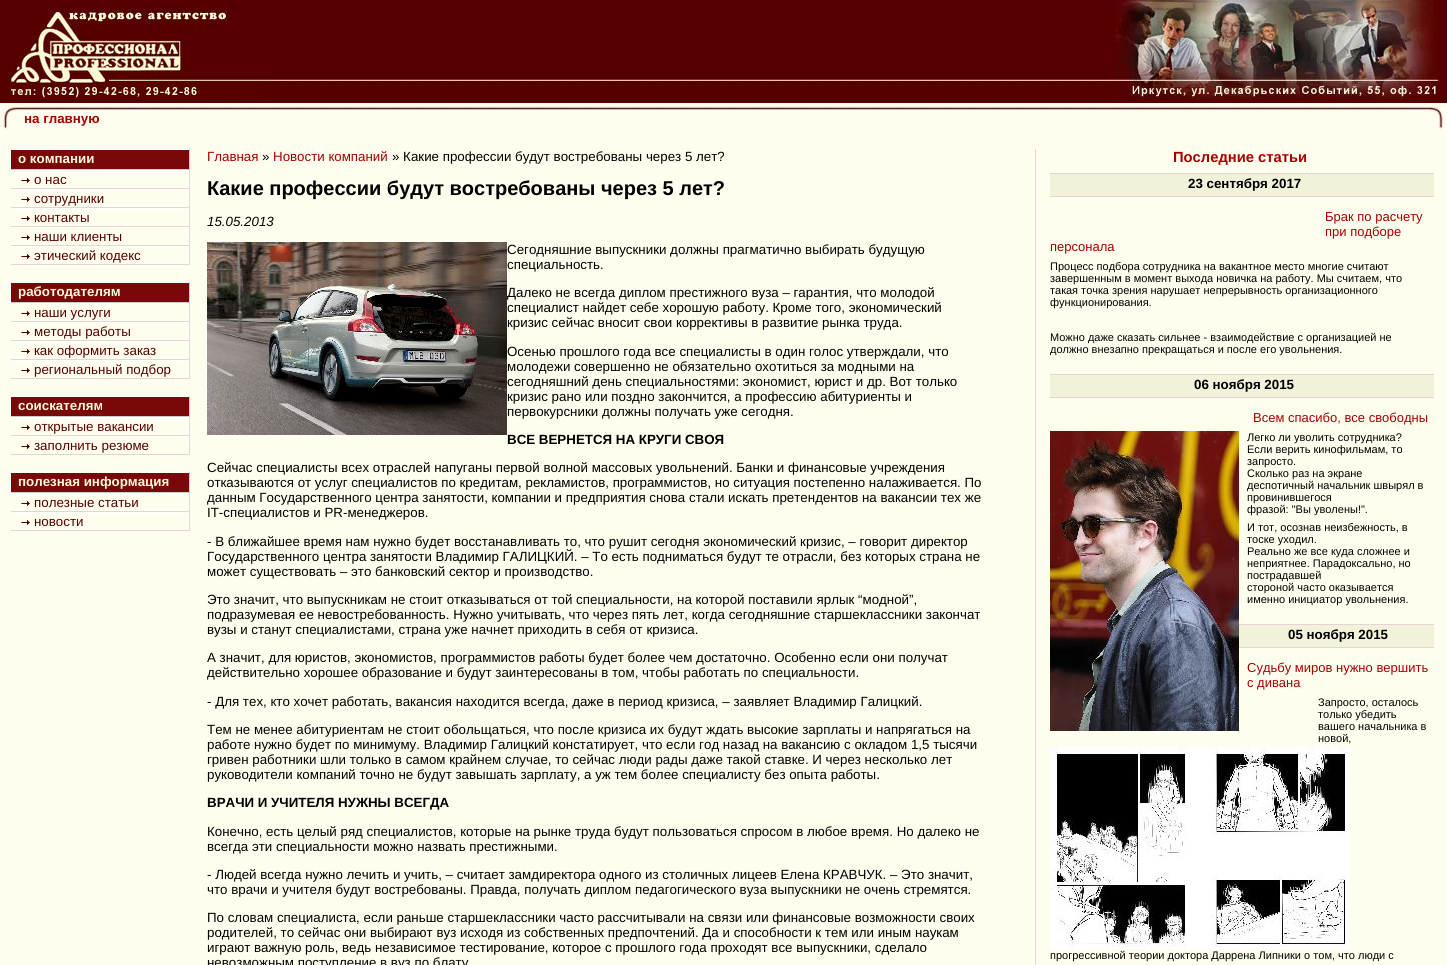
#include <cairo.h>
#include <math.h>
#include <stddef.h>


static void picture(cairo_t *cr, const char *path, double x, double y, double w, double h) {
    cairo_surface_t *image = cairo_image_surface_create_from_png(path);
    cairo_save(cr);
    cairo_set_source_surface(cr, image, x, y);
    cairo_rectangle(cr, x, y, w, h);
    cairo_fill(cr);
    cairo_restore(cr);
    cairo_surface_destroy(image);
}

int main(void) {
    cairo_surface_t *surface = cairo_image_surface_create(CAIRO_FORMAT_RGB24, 1447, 965);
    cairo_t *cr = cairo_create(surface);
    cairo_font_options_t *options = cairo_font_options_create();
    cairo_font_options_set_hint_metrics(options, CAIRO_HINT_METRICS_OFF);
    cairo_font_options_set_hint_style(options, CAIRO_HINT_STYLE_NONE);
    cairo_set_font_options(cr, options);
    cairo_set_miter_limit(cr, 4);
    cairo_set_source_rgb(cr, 1, 0.996, 0.933);
    cairo_paint(cr);
    cairo_set_source_rgb(cr, 0.333, 0, 0);
    cairo_rectangle(cr, 0, 0, 1447, 103);
    cairo_fill(cr);
    picture(cr, "img1.png", 8, 8, 262, 92);
    picture(cr, "img2.png", 270, 79, 837, 7);
    picture(cr, "img3.png", 1107, 0, 332, 100);
    picture(cr, "img4.png", 0, 103, 24, 27);
    picture(cr, "img5.png", 24, 106, 1399, 4);
    cairo_select_font_face(cr, "Liberation Sans", CAIRO_FONT_SLANT_NORMAL, CAIRO_FONT_WEIGHT_BOLD);
    cairo_set_font_size(cr, 13.33);
    cairo_set_source_rgb(cr, 0.647, 0, 0);
    cairo_move_to(cr, 24, 123);
    cairo_show_text(cr, "на главную");
    picture(cr, "img6.png", 1423, 107, 22, 23);
    cairo_set_source_rgb(cr, 0.475, 0.035, 0.035);
    cairo_rectangle(cr, 11, 150, 178, 19);
    cairo_fill(cr);
    cairo_set_source_rgb(cr, 1, 1, 1);
    cairo_rectangle(cr, 10, 149, 180, 1);
    cairo_fill(cr);
    cairo_set_source_rgb(cr, 0.8, 0.8, 0.8);
    cairo_rectangle(cr, 189, 149, 1, 21);
    cairo_fill(cr);
    cairo_rectangle(cr, 10, 169, 180, 1);
    cairo_fill(cr);
    cairo_set_source_rgb(cr, 1, 1, 1);
    cairo_rectangle(cr, 10, 149, 1, 21);
    cairo_fill(cr);
    cairo_set_source_rgb(cr, 0.996, 0.988, 0.867);
    cairo_move_to(cr, 18, 163);
    cairo_show_text(cr, "о компании");
    cairo_set_source_rgb(cr, 1, 1, 1);
    cairo_rectangle(cr, 10, 170, 180, 1);
    cairo_fill(cr);
    cairo_set_source_rgb(cr, 0.859, 0.859, 0.859);
    cairo_rectangle(cr, 189, 170, 1, 19);
    cairo_fill(cr);
    cairo_set_source_rgb(cr, 0.89, 0.835, 0.835);
    cairo_rectangle(cr, 10, 188, 180, 1);
    cairo_fill(cr);
    cairo_set_source_rgb(cr, 1, 0.996, 0.933);
    cairo_rectangle(cr, 10, 170, 1, 19);
    cairo_fill(cr);
    picture(cr, "img7.png", 21, 178, 9, 5);
    cairo_select_font_face(cr, "Liberation Sans", CAIRO_FONT_SLANT_NORMAL, CAIRO_FONT_WEIGHT_NORMAL);
    cairo_set_source_rgb(cr, 0.333, 0, 0);
    cairo_move_to(cr, 34, 184);
    cairo_show_text(cr, "о нас");
    cairo_set_source_rgb(cr, 1, 1, 1);
    cairo_rectangle(cr, 10, 189, 180, 1);
    cairo_fill(cr);
    cairo_set_source_rgb(cr, 0.859, 0.859, 0.859);
    cairo_rectangle(cr, 189, 189, 1, 19);
    cairo_fill(cr);
    cairo_set_source_rgb(cr, 0.89, 0.835, 0.835);
    cairo_rectangle(cr, 10, 207, 180, 1);
    cairo_fill(cr);
    cairo_set_source_rgb(cr, 1, 0.996, 0.933);
    cairo_rectangle(cr, 10, 189, 1, 19);
    cairo_fill(cr);
    picture(cr, "img7.png", 21, 197, 9, 5);
    cairo_set_source_rgb(cr, 0.333, 0, 0);
    cairo_move_to(cr, 34, 203);
    cairo_show_text(cr, "сотрудники");
    cairo_set_source_rgb(cr, 1, 1, 1);
    cairo_rectangle(cr, 10, 208, 180, 1);
    cairo_fill(cr);
    cairo_set_source_rgb(cr, 0.859, 0.859, 0.859);
    cairo_rectangle(cr, 189, 208, 1, 19);
    cairo_fill(cr);
    cairo_set_source_rgb(cr, 0.89, 0.835, 0.835);
    cairo_rectangle(cr, 10, 226, 180, 1);
    cairo_fill(cr);
    cairo_set_source_rgb(cr, 1, 0.996, 0.933);
    cairo_rectangle(cr, 10, 208, 1, 19);
    cairo_fill(cr);
    picture(cr, "img7.png", 21, 216, 9, 5);
    cairo_set_source_rgb(cr, 0.333, 0, 0);
    cairo_move_to(cr, 34, 222);
    cairo_show_text(cr, "контакты");
    cairo_set_source_rgb(cr, 1, 1, 1);
    cairo_rectangle(cr, 10, 227, 180, 1);
    cairo_fill(cr);
    cairo_set_source_rgb(cr, 0.859, 0.859, 0.859);
    cairo_rectangle(cr, 189, 227, 1, 19);
    cairo_fill(cr);
    cairo_set_source_rgb(cr, 0.89, 0.835, 0.835);
    cairo_rectangle(cr, 10, 245, 180, 1);
    cairo_fill(cr);
    cairo_set_source_rgb(cr, 1, 0.996, 0.933);
    cairo_rectangle(cr, 10, 227, 1, 19);
    cairo_fill(cr);
    picture(cr, "img7.png", 21, 235, 9, 5);
    cairo_set_source_rgb(cr, 0.333, 0, 0);
    cairo_move_to(cr, 34, 241);
    cairo_show_text(cr, "наши клиенты");
    cairo_set_source_rgb(cr, 1, 1, 1);
    cairo_rectangle(cr, 10, 246, 180, 1);
    cairo_fill(cr);
    cairo_set_source_rgb(cr, 0.859, 0.859, 0.859);
    cairo_rectangle(cr, 189, 246, 1, 19);
    cairo_fill(cr);
    cairo_set_source_rgb(cr, 0.89, 0.835, 0.835);
    cairo_rectangle(cr, 10, 264, 180, 1);
    cairo_fill(cr);
    cairo_set_source_rgb(cr, 1, 0.996, 0.933);
    cairo_rectangle(cr, 10, 246, 1, 19);
    cairo_fill(cr);
    picture(cr, "img7.png", 21, 254, 9, 5);
    cairo_set_source_rgb(cr, 0.333, 0, 0);
    cairo_move_to(cr, 34, 260);
    cairo_show_text(cr, "этический кодекс");
    cairo_set_source_rgb(cr, 0.475, 0.035, 0.035);
    cairo_rectangle(cr, 11, 283, 178, 19);
    cairo_fill(cr);
    cairo_set_source_rgb(cr, 1, 1, 1);
    cairo_rectangle(cr, 10, 282, 180, 1);
    cairo_fill(cr);
    cairo_set_source_rgb(cr, 0.8, 0.8, 0.8);
    cairo_rectangle(cr, 189, 282, 1, 21);
    cairo_fill(cr);
    cairo_rectangle(cr, 10, 302, 180, 1);
    cairo_fill(cr);
    cairo_set_source_rgb(cr, 1, 1, 1);
    cairo_rectangle(cr, 10, 282, 1, 21);
    cairo_fill(cr);
    cairo_select_font_face(cr, "Liberation Sans", CAIRO_FONT_SLANT_NORMAL, CAIRO_FONT_WEIGHT_BOLD);
    cairo_set_source_rgb(cr, 0.996, 0.988, 0.867);
    cairo_move_to(cr, 18, 296);
    cairo_show_text(cr, "работодателям");
    cairo_set_source_rgb(cr, 1, 1, 1);
    cairo_rectangle(cr, 10, 303, 180, 1);
    cairo_fill(cr);
    cairo_set_source_rgb(cr, 0.859, 0.859, 0.859);
    cairo_rectangle(cr, 189, 303, 1, 19);
    cairo_fill(cr);
    cairo_set_source_rgb(cr, 0.89, 0.835, 0.835);
    cairo_rectangle(cr, 10, 321, 180, 1);
    cairo_fill(cr);
    cairo_set_source_rgb(cr, 1, 0.996, 0.933);
    cairo_rectangle(cr, 10, 303, 1, 19);
    cairo_fill(cr);
    picture(cr, "img7.png", 21, 311, 9, 5);
    cairo_select_font_face(cr, "Liberation Sans", CAIRO_FONT_SLANT_NORMAL, CAIRO_FONT_WEIGHT_NORMAL);
    cairo_set_source_rgb(cr, 0.333, 0, 0);
    cairo_move_to(cr, 34, 317);
    cairo_show_text(cr, "наши услуги");
    cairo_set_source_rgb(cr, 1, 1, 1);
    cairo_rectangle(cr, 10, 322, 180, 1);
    cairo_fill(cr);
    cairo_set_source_rgb(cr, 0.859, 0.859, 0.859);
    cairo_rectangle(cr, 189, 322, 1, 19);
    cairo_fill(cr);
    cairo_set_source_rgb(cr, 0.89, 0.835, 0.835);
    cairo_rectangle(cr, 10, 340, 180, 1);
    cairo_fill(cr);
    cairo_set_source_rgb(cr, 1, 0.996, 0.933);
    cairo_rectangle(cr, 10, 322, 1, 19);
    cairo_fill(cr);
    picture(cr, "img7.png", 21, 330, 9, 5);
    cairo_set_source_rgb(cr, 0.333, 0, 0);
    cairo_move_to(cr, 34, 336);
    cairo_show_text(cr, "методы работы");
    cairo_set_source_rgb(cr, 1, 1, 1);
    cairo_rectangle(cr, 10, 341, 180, 1);
    cairo_fill(cr);
    cairo_set_source_rgb(cr, 0.859, 0.859, 0.859);
    cairo_rectangle(cr, 189, 341, 1, 19);
    cairo_fill(cr);
    cairo_set_source_rgb(cr, 0.89, 0.835, 0.835);
    cairo_rectangle(cr, 10, 359, 180, 1);
    cairo_fill(cr);
    cairo_set_source_rgb(cr, 1, 0.996, 0.933);
    cairo_rectangle(cr, 10, 341, 1, 19);
    cairo_fill(cr);
    picture(cr, "img7.png", 21, 349, 9, 5);
    cairo_set_source_rgb(cr, 0.333, 0, 0);
    cairo_move_to(cr, 34, 355);
    cairo_show_text(cr, "как оформить заказ");
    cairo_set_source_rgb(cr, 1, 1, 1);
    cairo_rectangle(cr, 10, 360, 180, 1);
    cairo_fill(cr);
    cairo_set_source_rgb(cr, 0.859, 0.859, 0.859);
    cairo_rectangle(cr, 189, 360, 1, 19);
    cairo_fill(cr);
    cairo_set_source_rgb(cr, 0.89, 0.835, 0.835);
    cairo_rectangle(cr, 10, 378, 180, 1);
    cairo_fill(cr);
    cairo_set_source_rgb(cr, 1, 0.996, 0.933);
    cairo_rectangle(cr, 10, 360, 1, 19);
    cairo_fill(cr);
    picture(cr, "img7.png", 21, 368, 9, 5);
    cairo_set_source_rgb(cr, 0.333, 0, 0);
    cairo_move_to(cr, 34, 374);
    cairo_show_text(cr, "региональный подбор");
    cairo_set_source_rgb(cr, 0.475, 0.035, 0.035);
    cairo_rectangle(cr, 11, 397, 178, 19);
    cairo_fill(cr);
    cairo_set_source_rgb(cr, 1, 1, 1);
    cairo_rectangle(cr, 10, 396, 180, 1);
    cairo_fill(cr);
    cairo_set_source_rgb(cr, 0.8, 0.8, 0.8);
    cairo_rectangle(cr, 189, 396, 1, 21);
    cairo_fill(cr);
    cairo_rectangle(cr, 10, 416, 180, 1);
    cairo_fill(cr);
    cairo_set_source_rgb(cr, 1, 1, 1);
    cairo_rectangle(cr, 10, 396, 1, 21);
    cairo_fill(cr);
    cairo_select_font_face(cr, "Liberation Sans", CAIRO_FONT_SLANT_NORMAL, CAIRO_FONT_WEIGHT_BOLD);
    cairo_set_source_rgb(cr, 0.996, 0.988, 0.867);
    cairo_move_to(cr, 18, 410);
    cairo_show_text(cr, "соискателям");
    cairo_set_source_rgb(cr, 1, 1, 1);
    cairo_rectangle(cr, 10, 417, 180, 1);
    cairo_fill(cr);
    cairo_set_source_rgb(cr, 0.859, 0.859, 0.859);
    cairo_rectangle(cr, 189, 417, 1, 19);
    cairo_fill(cr);
    cairo_set_source_rgb(cr, 0.89, 0.835, 0.835);
    cairo_rectangle(cr, 10, 435, 180, 1);
    cairo_fill(cr);
    cairo_set_source_rgb(cr, 1, 0.996, 0.933);
    cairo_rectangle(cr, 10, 417, 1, 19);
    cairo_fill(cr);
    picture(cr, "img7.png", 21, 425, 9, 5);
    cairo_select_font_face(cr, "Liberation Sans", CAIRO_FONT_SLANT_NORMAL, CAIRO_FONT_WEIGHT_NORMAL);
    cairo_set_source_rgb(cr, 0.333, 0, 0);
    cairo_move_to(cr, 34, 431);
    cairo_show_text(cr, "открытые вакансии");
    cairo_set_source_rgb(cr, 1, 1, 1);
    cairo_rectangle(cr, 10, 436, 180, 1);
    cairo_fill(cr);
    cairo_set_source_rgb(cr, 0.859, 0.859, 0.859);
    cairo_rectangle(cr, 189, 436, 1, 19);
    cairo_fill(cr);
    cairo_set_source_rgb(cr, 0.89, 0.835, 0.835);
    cairo_rectangle(cr, 10, 454, 180, 1);
    cairo_fill(cr);
    cairo_set_source_rgb(cr, 1, 0.996, 0.933);
    cairo_rectangle(cr, 10, 436, 1, 19);
    cairo_fill(cr);
    picture(cr, "img7.png", 21, 444, 9, 5);
    cairo_set_source_rgb(cr, 0.333, 0, 0);
    cairo_move_to(cr, 34, 450);
    cairo_show_text(cr, "заполнить резюме");
    cairo_set_source_rgb(cr, 0.475, 0.035, 0.035);
    cairo_rectangle(cr, 11, 473, 178, 19);
    cairo_fill(cr);
    cairo_set_source_rgb(cr, 1, 1, 1);
    cairo_rectangle(cr, 10, 472, 180, 1);
    cairo_fill(cr);
    cairo_set_source_rgb(cr, 0.8, 0.8, 0.8);
    cairo_rectangle(cr, 189, 472, 1, 21);
    cairo_fill(cr);
    cairo_rectangle(cr, 10, 492, 180, 1);
    cairo_fill(cr);
    cairo_set_source_rgb(cr, 1, 1, 1);
    cairo_rectangle(cr, 10, 472, 1, 21);
    cairo_fill(cr);
    cairo_select_font_face(cr, "Liberation Sans", CAIRO_FONT_SLANT_NORMAL, CAIRO_FONT_WEIGHT_BOLD);
    cairo_set_source_rgb(cr, 0.996, 0.988, 0.867);
    cairo_move_to(cr, 18, 486);
    cairo_show_text(cr, "полезная информация");
    cairo_set_source_rgb(cr, 1, 1, 1);
    cairo_rectangle(cr, 10, 493, 180, 1);
    cairo_fill(cr);
    cairo_set_source_rgb(cr, 0.859, 0.859, 0.859);
    cairo_rectangle(cr, 189, 493, 1, 19);
    cairo_fill(cr);
    cairo_set_source_rgb(cr, 0.89, 0.835, 0.835);
    cairo_rectangle(cr, 10, 511, 180, 1);
    cairo_fill(cr);
    cairo_set_source_rgb(cr, 1, 0.996, 0.933);
    cairo_rectangle(cr, 10, 493, 1, 19);
    cairo_fill(cr);
    picture(cr, "img7.png", 21, 501, 9, 5);
    cairo_select_font_face(cr, "Liberation Sans", CAIRO_FONT_SLANT_NORMAL, CAIRO_FONT_WEIGHT_NORMAL);
    cairo_set_source_rgb(cr, 0.333, 0, 0);
    cairo_move_to(cr, 34, 507);
    cairo_show_text(cr, "полезные статьи");
    cairo_set_source_rgb(cr, 1, 1, 1);
    cairo_rectangle(cr, 10, 512, 180, 1);
    cairo_fill(cr);
    cairo_set_source_rgb(cr, 0.859, 0.859, 0.859);
    cairo_rectangle(cr, 189, 512, 1, 19);
    cairo_fill(cr);
    cairo_set_source_rgb(cr, 0.89, 0.835, 0.835);
    cairo_rectangle(cr, 10, 530, 180, 1);
    cairo_fill(cr);
    cairo_set_source_rgb(cr, 1, 0.996, 0.933);
    cairo_rectangle(cr, 10, 512, 1, 19);
    cairo_fill(cr);
    picture(cr, "img7.png", 21, 520, 9, 5);
    cairo_set_source_rgb(cr, 0.333, 0, 0);
    cairo_move_to(cr, 34, 526);
    cairo_show_text(cr, "новости");
    cairo_set_source_rgb(cr, 0.647, 0, 0);
    cairo_move_to(cr, 207, 161);
    cairo_show_text(cr, "Главная");
    cairo_set_source_rgb(cr, 0, 0, 0);
    cairo_move_to(cr, 262, 161);
    cairo_show_text(cr, "»");
    cairo_set_source_rgb(cr, 0.647, 0, 0);
    cairo_move_to(cr, 273, 161);
    cairo_show_text(cr, "Новости компаний");
    cairo_set_source_rgb(cr, 0, 0, 0);
    cairo_move_to(cr, 392, 161);
    cairo_show_text(cr, "» Какие профессии будут востребованы через 5 лет?");
    cairo_select_font_face(cr, "Liberation Sans", CAIRO_FONT_SLANT_NORMAL, CAIRO_FONT_WEIGHT_BOLD);
    cairo_set_font_size(cr, 20);
    cairo_move_to(cr, 207, 195);
    cairo_show_text(cr, "Какие профессии будут востребованы через 5 лет?");
    cairo_select_font_face(cr, "Liberation Sans", CAIRO_FONT_SLANT_ITALIC, CAIRO_FONT_WEIGHT_NORMAL);
    cairo_set_font_size(cr, 13.33);
    cairo_move_to(cr, 207, 226);
    cairo_show_text(cr, "15.05.2013");
    picture(cr, "img8.png", 207, 242, 300, 193);
    cairo_select_font_face(cr, "Liberation Sans", CAIRO_FONT_SLANT_NORMAL, CAIRO_FONT_WEIGHT_NORMAL);
    cairo_move_to(cr, 507, 254);
    cairo_show_text(cr, "Сегодняшние выпускники должны прагматично выбирать будущую");
    cairo_move_to(cr, 507, 269);
    cairo_show_text(cr, "специальность.");
    cairo_move_to(cr, 507, 297);
    cairo_show_text(cr, "Далеко не всегда диплом престижного вуза – гарантия, что молодой");
    cairo_move_to(cr, 507, 312);
    cairo_show_text(cr, "специалист найдет себе хорошую работу. Кроме того, экономический");
    cairo_move_to(cr, 507, 327);
    cairo_show_text(cr, "кризис сейчас вносит свои коррективы в развитие рынка труда.");
    cairo_move_to(cr, 507, 356);
    cairo_show_text(cr, "Осенью прошлого года все специалисты в один голос утверждали, что");
    cairo_move_to(cr, 507, 371);
    cairo_show_text(cr, "молодежи совершенно не обязательно охотиться за модными на");
    cairo_move_to(cr, 507, 386);
    cairo_show_text(cr, "сегодняшний день специальностями: экономист, юрист и др. Вот только");
    cairo_move_to(cr, 507, 401);
    cairo_show_text(cr, "кризис рано или поздно закончится, а профессию абитуриенты и");
    cairo_move_to(cr, 507, 416);
    cairo_show_text(cr, "первокурсники должны получать уже сегодня.");
    cairo_select_font_face(cr, "Liberation Sans", CAIRO_FONT_SLANT_NORMAL, CAIRO_FONT_WEIGHT_BOLD);
    cairo_move_to(cr, 507, 444);
    cairo_show_text(cr, "ВСЕ ВЕРНЕТСЯ НА КРУГИ СВОЯ");
    cairo_select_font_face(cr, "Liberation Sans", CAIRO_FONT_SLANT_NORMAL, CAIRO_FONT_WEIGHT_NORMAL);
    cairo_move_to(cr, 207, 472);
    cairo_show_text(cr, "Сейчас специалисты всех отраслей напуганы первой волной массовых увольнений. Банки и финансовые учреждения");
    cairo_move_to(cr, 207, 487);
    cairo_show_text(cr, "отказываются от услуг специалистов по кредитам, рекламистов, программистов, но ситуация постепенно налаживается. По");
    cairo_move_to(cr, 207, 502);
    cairo_show_text(cr, "данным Государственного центра занятости, компании и предприятия снова стали искать претендентов на вакансии тех же");
    cairo_move_to(cr, 207, 517);
    cairo_show_text(cr, "IT-специалистов и PR-менеджеров.");
    cairo_move_to(cr, 207, 546);
    cairo_show_text(cr, "- В ближайшее время нам нужно будет восстанавливать то, что рушит сегодня экономический кризис, – говорит директор");
    cairo_move_to(cr, 207, 561);
    cairo_show_text(cr, "Государственного центра занятости Владимир ГАЛИЦКИЙ. – То есть подниматься будут те отрасли, без которых страна не");
    cairo_move_to(cr, 207, 576);
    cairo_show_text(cr, "может существовать – это банковский сектор и производство.");
    cairo_move_to(cr, 207, 604);
    cairo_show_text(cr, "Это значит, что выпускникам не стоит отказываться от той специальности, на которой поставили ярлык “модной”,");
    cairo_move_to(cr, 207, 619);
    cairo_show_text(cr, "подразумевая ее невостребованность. Нужно учитывать, что через пять лет, когда сегодняшние старшеклассники закончат");
    cairo_move_to(cr, 207, 634);
    cairo_show_text(cr, "вузы и станут специалистами, страна уже начнет приходить в себя от кризиса.");
    cairo_move_to(cr, 207, 662);
    cairo_show_text(cr, "А значит, для юристов, экономистов, программистов работы будет более чем достаточно. Особенно если они получат");
    cairo_move_to(cr, 207, 677);
    cairo_show_text(cr, "действительно хорошее образование и будут заинтересованы в том, чтобы работать по специальности.");
    cairo_move_to(cr, 207, 706);
    cairo_show_text(cr, "- Для тех, кто хочет работать, вакансия находится всегда, даже в период кризиса, – заявляет Владимир Галицкий.");
    cairo_move_to(cr, 207, 734);
    cairo_show_text(cr, "Тем не менее абитуриентам не стоит обольщаться, что после кризиса их будут ждать высокие зарплаты и напрягаться на");
    cairo_move_to(cr, 207, 749);
    cairo_show_text(cr, "работе нужно будет по минимуму. Владимир Галицкий констатирует, что если год назад на вакансию с окладом 1,5 тысячи");
    cairo_move_to(cr, 207, 764);
    cairo_show_text(cr, "гривен работники шли только в самом крайнем случае, то сейчас люди рады даже такой ставке. И через несколько лет");
    cairo_move_to(cr, 207, 779);
    cairo_show_text(cr, "руководители компаний точно не будут завышать зарплату, а уж тем более специалисту без опыта работы.");
    cairo_select_font_face(cr, "Liberation Sans", CAIRO_FONT_SLANT_NORMAL, CAIRO_FONT_WEIGHT_BOLD);
    cairo_move_to(cr, 207, 807);
    cairo_show_text(cr, "ВРАЧИ И УЧИТЕЛЯ НУЖНЫ ВСЕГДА");
    cairo_select_font_face(cr, "Liberation Sans", CAIRO_FONT_SLANT_NORMAL, CAIRO_FONT_WEIGHT_NORMAL);
    cairo_move_to(cr, 207, 836);
    cairo_show_text(cr, "Конечно, есть целый ряд специалистов, которые на рынке труда будут пользоваться спросом в любое время. Но далеко не");
    cairo_move_to(cr, 207, 851);
    cairo_show_text(cr, "всегда эти специальности можно назвать престижными.");
    cairo_move_to(cr, 207, 879);
    cairo_show_text(cr, "- Людей всегда нужно лечить и учить, – считает замдиректора одного из столичных лицеев Елена КРАВЧУК. – Это значит,");
    cairo_move_to(cr, 207, 894);
    cairo_show_text(cr, "что врачи и учителя будут востребованы. Правда, получать диплом педагогического вуза выпускники не очень стремятся.");
    cairo_move_to(cr, 207, 922);
    cairo_show_text(cr, "По словам специалиста, если раньше старшеклассники часто рассчитывали на связи или финансовые возможности своих");
    cairo_move_to(cr, 207, 937);
    cairo_show_text(cr, "родителей, то сейчас они выбирают вуз исходя из собственных предпочтений. Да и способности к тем или иным наукам");
    cairo_move_to(cr, 207, 952);
    cairo_show_text(cr, "играют важную роль, ведь независимое тестирование, которое с прошлого года проходят все выпускники, сделало");
    cairo_move_to(cr, 207, 967);
    cairo_show_text(cr, "невозможным поступление в вуз по блату.");
    cairo_set_source_rgb(cr, 0.89, 0.835, 0.835);
    cairo_rectangle(cr, 1035, 149, 1, 816);
    cairo_fill(cr);
    cairo_select_font_face(cr, "Liberation Sans", CAIRO_FONT_SLANT_NORMAL, CAIRO_FONT_WEIGHT_BOLD);
    cairo_set_font_size(cr, 14.75);
    cairo_set_source_rgb(cr, 0.647, 0, 0);
    cairo_move_to(cr, 1173, 162);
    cairo_show_text(cr, "Последние статьи");
    cairo_set_source_rgb(cr, 0.949, 0.945, 0.855);
    cairo_rectangle(cr, 1050, 174, 384, 22);
    cairo_fill(cr);
    cairo_set_source_rgb(cr, 0.89, 0.835, 0.835);
    cairo_rectangle(cr, 1050, 173, 384, 1);
    cairo_fill(cr);
    cairo_rectangle(cr, 1050, 196, 384, 1);
    cairo_fill(cr);
    cairo_set_font_size(cr, 13.33);
    cairo_set_source_rgb(cr, 0, 0, 0);
    cairo_move_to(cr, 1188, 188);
    cairo_show_text(cr, "23 сентября 2017");
    cairo_select_font_face(cr, "Liberation Sans", CAIRO_FONT_SLANT_NORMAL, CAIRO_FONT_WEIGHT_NORMAL);
    cairo_set_font_size(cr, 13);
    cairo_set_source_rgb(cr, 0.647, 0, 0);
    cairo_move_to(cr, 1325, 221);
    cairo_show_text(cr, "Брак по расчету");
    cairo_move_to(cr, 1325, 236);
    cairo_show_text(cr, "при подборе");
    cairo_move_to(cr, 1050, 251);
    cairo_show_text(cr, "персонала");
    cairo_set_font_size(cr, 11);
    cairo_set_source_rgb(cr, 0, 0, 0);
    cairo_move_to(cr, 1050, 270);
    cairo_show_text(cr, "Процесс подбора сотрудника на вакантное место многие считают");
    cairo_move_to(cr, 1050, 282);
    cairo_show_text(cr, "завершенным в момент выхода новичка на работу. Мы считаем, что");
    cairo_move_to(cr, 1050, 294);
    cairo_show_text(cr, "такая точка зрения нарушает непрерывность организационного");
    cairo_move_to(cr, 1050, 306);
    cairo_show_text(cr, "функционирования.");
    cairo_move_to(cr, 1050, 341);
    cairo_show_text(cr, "Можно даже сказать сильнее - взаимодействие с организацией не");
    cairo_move_to(cr, 1050, 353);
    cairo_show_text(cr, "должно внезапно прекращаться и после его увольнения.");
    cairo_set_source_rgb(cr, 0.949, 0.945, 0.855);
    cairo_rectangle(cr, 1050, 375, 384, 22);
    cairo_fill(cr);
    cairo_set_source_rgb(cr, 0.89, 0.835, 0.835);
    cairo_rectangle(cr, 1050, 374, 384, 1);
    cairo_fill(cr);
    cairo_rectangle(cr, 1050, 397, 384, 1);
    cairo_fill(cr);
    cairo_select_font_face(cr, "Liberation Sans", CAIRO_FONT_SLANT_NORMAL, CAIRO_FONT_WEIGHT_BOLD);
    cairo_set_font_size(cr, 13.33);
    cairo_set_source_rgb(cr, 0, 0, 0);
    cairo_move_to(cr, 1194, 389);
    cairo_show_text(cr, "06 ноября 2015");
    cairo_select_font_face(cr, "Liberation Sans", CAIRO_FONT_SLANT_NORMAL, CAIRO_FONT_WEIGHT_NORMAL);
    cairo_set_font_size(cr, 13);
    cairo_set_source_rgb(cr, 0.647, 0, 0);
    cairo_move_to(cr, 1253, 422);
    cairo_show_text(cr, "Всем спасибо, все свободны");
    picture(cr, "img9.png", 1050, 431, 189, 300);
    cairo_set_font_size(cr, 11);
    cairo_set_source_rgb(cr, 0, 0, 0);
    cairo_move_to(cr, 1247, 441);
    cairo_show_text(cr, "Легко ли уволить сотрудника?");
    cairo_move_to(cr, 1247, 453);
    cairo_show_text(cr, "Если верить кинофильмам, то");
    cairo_move_to(cr, 1247, 465);
    cairo_show_text(cr, "запросто.");
    cairo_move_to(cr, 1247, 477);
    cairo_show_text(cr, "Сколько раз на экране");
    cairo_move_to(cr, 1247, 489);
    cairo_show_text(cr, "деспотичный начальник швырял в");
    cairo_move_to(cr, 1247, 501);
    cairo_show_text(cr, "провинившегося");
    cairo_move_to(cr, 1247, 513);
    cairo_show_text(cr, "фразой: \"Вы уволены!\".");
    cairo_move_to(cr, 1247, 531);
    cairo_show_text(cr, "И тот, осознав неизбежность, в");
    cairo_move_to(cr, 1247, 543);
    cairo_show_text(cr, "тоске уходил.");
    cairo_move_to(cr, 1247, 555);
    cairo_show_text(cr, "Реально же все куда сложнее и");
    cairo_move_to(cr, 1247, 567);
    cairo_show_text(cr, "неприятнее. Парадоксально, но");
    cairo_move_to(cr, 1247, 579);
    cairo_show_text(cr, "пострадавшей");
    cairo_move_to(cr, 1247, 591);
    cairo_show_text(cr, "стороной часто оказывается");
    cairo_move_to(cr, 1247, 603);
    cairo_show_text(cr, "именно инициатор увольнения.");
    cairo_set_source_rgb(cr, 0.949, 0.945, 0.855);
    cairo_rectangle(cr, 1239, 625, 195, 22);
    cairo_fill(cr);
    cairo_set_source_rgb(cr, 0.89, 0.835, 0.835);
    cairo_rectangle(cr, 1239, 624, 195, 1);
    cairo_fill(cr);
    cairo_rectangle(cr, 1239, 647, 195, 1);
    cairo_fill(cr);
    cairo_select_font_face(cr, "Liberation Sans", CAIRO_FONT_SLANT_NORMAL, CAIRO_FONT_WEIGHT_BOLD);
    cairo_set_font_size(cr, 13.33);
    cairo_set_source_rgb(cr, 0, 0, 0);
    cairo_move_to(cr, 1288, 639);
    cairo_show_text(cr, "05 ноября 2015");
    cairo_select_font_face(cr, "Liberation Sans", CAIRO_FONT_SLANT_NORMAL, CAIRO_FONT_WEIGHT_NORMAL);
    cairo_set_font_size(cr, 13);
    cairo_set_source_rgb(cr, 0.647, 0, 0);
    cairo_move_to(cr, 1247, 672);
    cairo_show_text(cr, "Судьбу миров нужно вершить");
    cairo_move_to(cr, 1247, 687);
    cairo_show_text(cr, "с дивана");
    cairo_set_font_size(cr, 11);
    cairo_set_source_rgb(cr, 0, 0, 0);
    cairo_move_to(cr, 1318, 706);
    cairo_show_text(cr, "Запросто, осталось");
    cairo_move_to(cr, 1318, 718);
    cairo_show_text(cr, "только убедить");
    cairo_move_to(cr, 1318, 730);
    cairo_show_text(cr, "вашего начальника в");
    cairo_move_to(cr, 1318, 742);
    cairo_show_text(cr, "новой,");
    picture(cr, "img10.png", 1050, 747, 300, 202);
    cairo_move_to(cr, 1050, 959);
    cairo_show_text(cr, "прогрессивной теории доктора Даррена Липники о том, что люди с");
    cairo_surface_write_to_png(surface, "page.png");
    cairo_font_options_destroy(options);
    cairo_destroy(cr);
    cairo_surface_destroy(surface);
    return 0;
}
